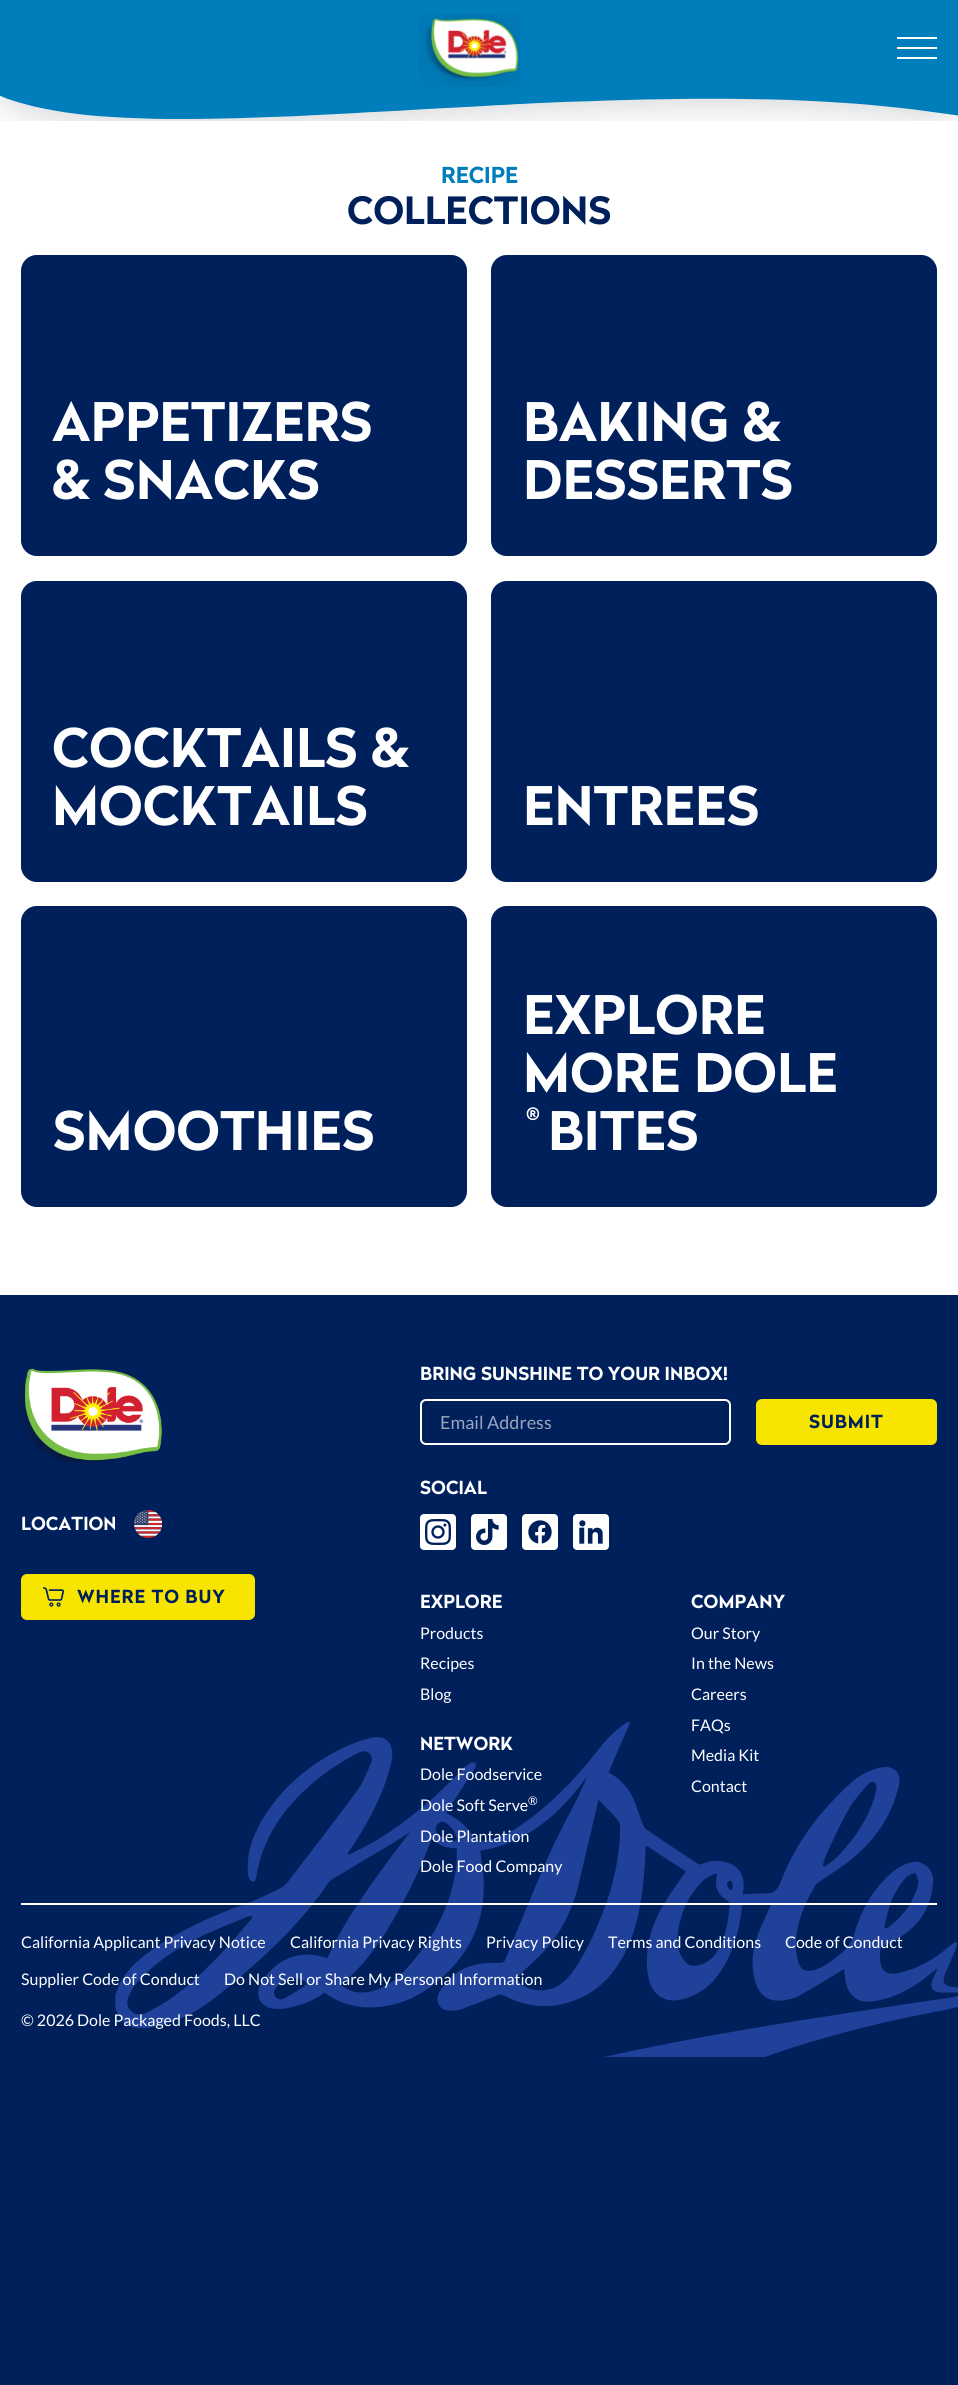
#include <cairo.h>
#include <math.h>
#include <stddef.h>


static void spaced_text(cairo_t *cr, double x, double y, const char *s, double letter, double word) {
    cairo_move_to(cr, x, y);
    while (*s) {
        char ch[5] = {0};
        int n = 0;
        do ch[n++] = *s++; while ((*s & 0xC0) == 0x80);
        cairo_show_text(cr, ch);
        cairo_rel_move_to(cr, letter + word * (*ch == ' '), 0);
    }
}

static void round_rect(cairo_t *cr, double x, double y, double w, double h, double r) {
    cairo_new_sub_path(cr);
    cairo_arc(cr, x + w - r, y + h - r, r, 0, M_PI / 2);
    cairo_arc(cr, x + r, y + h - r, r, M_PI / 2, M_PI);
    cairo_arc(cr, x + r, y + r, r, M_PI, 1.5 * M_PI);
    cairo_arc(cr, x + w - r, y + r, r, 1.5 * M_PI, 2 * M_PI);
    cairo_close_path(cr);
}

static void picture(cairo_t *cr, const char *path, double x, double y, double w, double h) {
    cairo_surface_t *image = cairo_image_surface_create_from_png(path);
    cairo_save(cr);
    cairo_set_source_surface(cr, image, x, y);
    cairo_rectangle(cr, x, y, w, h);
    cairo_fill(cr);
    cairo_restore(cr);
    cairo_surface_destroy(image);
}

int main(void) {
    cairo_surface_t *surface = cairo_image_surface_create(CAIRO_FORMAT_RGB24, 958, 2385);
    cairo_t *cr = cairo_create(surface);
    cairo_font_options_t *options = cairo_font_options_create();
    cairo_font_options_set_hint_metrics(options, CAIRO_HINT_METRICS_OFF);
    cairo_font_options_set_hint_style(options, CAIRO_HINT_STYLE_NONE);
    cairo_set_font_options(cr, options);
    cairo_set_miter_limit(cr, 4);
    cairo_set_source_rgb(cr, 0, 0.125, 0.361);
    cairo_paint(cr);
    cairo_set_source_rgb(cr, 1, 1, 1);
    cairo_rectangle(cr, 0, 96, 958, 1199);
    cairo_fill(cr);
    picture(cr, "img1.png", 0, 0, 958, 121);
    picture(cr, "img2.png", 418, 14, 102, 73);
    cairo_rectangle(cr, 897, 37, 40, 2);
    cairo_fill(cr);
    cairo_rectangle(cr, 897, 47, 40, 2);
    cairo_fill(cr);
    cairo_rectangle(cr, 897, 57, 40, 2);
    cairo_fill(cr);
    cairo_select_font_face(cr, "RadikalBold", CAIRO_FONT_SLANT_NORMAL, CAIRO_FONT_WEIGHT_BOLD);
    cairo_set_font_size(cr, 22);
    cairo_set_source_rgb(cr, 0, 0.49, 0.733);
    cairo_move_to(cr, 441, 183);
    cairo_show_text(cr, "RECIPE");
    cairo_set_font_size(cr, 37.5);
    cairo_set_source_rgb(cr, 0, 0.125, 0.361);
    cairo_move_to(cr, 347, 224);
    cairo_show_text(cr, "COLLECTIONS");
    round_rect(cr, 21, 255, 446, 301, 16);
    cairo_fill(cr);
    cairo_set_source_rgba(cr, 0, 0.125, 0.361, 0.25);
    round_rect(cr, 21, 255, 446, 301, 16);
    cairo_fill(cr);
    cairo_set_font_size(cr, 53);
    cairo_set_source_rgb(cr, 1, 1, 1);
    cairo_move_to(cr, 52, 441);
    cairo_show_text(cr, "APPETIZERS");
    cairo_move_to(cr, 52, 499);
    cairo_show_text(cr, "& SNACKS");
    cairo_set_source_rgb(cr, 0, 0.125, 0.361);
    round_rect(cr, 491, 255, 446, 301, 16);
    cairo_fill(cr);
    cairo_set_source_rgba(cr, 0, 0.125, 0.361, 0.25);
    round_rect(cr, 491, 255, 446, 301, 16);
    cairo_fill(cr);
    cairo_set_source_rgb(cr, 1, 1, 1);
    cairo_move_to(cr, 523, 441);
    cairo_show_text(cr, "BAKING &");
    cairo_move_to(cr, 523, 499);
    cairo_show_text(cr, "DESSERTS");
    cairo_set_source_rgb(cr, 0, 0.125, 0.361);
    round_rect(cr, 21, 581, 446, 301, 16);
    cairo_fill(cr);
    cairo_set_source_rgba(cr, 0, 0.125, 0.361, 0.25);
    round_rect(cr, 21, 581, 446, 301, 16);
    cairo_fill(cr);
    cairo_set_source_rgb(cr, 1, 1, 1);
    cairo_move_to(cr, 52, 767);
    cairo_show_text(cr, "COCKTAILS &");
    cairo_move_to(cr, 52, 825);
    cairo_show_text(cr, "MOCKTAILS");
    cairo_set_source_rgb(cr, 0, 0.125, 0.361);
    round_rect(cr, 491, 581, 446, 301, 16);
    cairo_fill(cr);
    cairo_set_source_rgba(cr, 0, 0.125, 0.361, 0.25);
    round_rect(cr, 491, 581, 446, 301, 16);
    cairo_fill(cr);
    cairo_set_source_rgb(cr, 1, 1, 1);
    cairo_move_to(cr, 523, 825);
    cairo_show_text(cr, "ENTREES");
    cairo_set_source_rgb(cr, 0, 0.125, 0.361);
    round_rect(cr, 21, 906, 446, 301, 16);
    cairo_fill(cr);
    cairo_set_source_rgba(cr, 0, 0.125, 0.361, 0.25);
    round_rect(cr, 21, 906, 446, 301, 16);
    cairo_fill(cr);
    cairo_set_source_rgb(cr, 1, 1, 1);
    cairo_move_to(cr, 53, 1150);
    cairo_show_text(cr, "SMOOTHIES");
    cairo_set_source_rgb(cr, 0, 0.125, 0.361);
    round_rect(cr, 491, 906, 446, 301, 16);
    cairo_fill(cr);
    cairo_set_source_rgba(cr, 0, 0.125, 0.361, 0.25);
    round_rect(cr, 491, 906, 446, 301, 16);
    cairo_fill(cr);
    cairo_set_source_rgb(cr, 1, 1, 1);
    cairo_move_to(cr, 523, 1034);
    cairo_show_text(cr, "EXPLORE");
    cairo_move_to(cr, 523, 1092);
    cairo_show_text(cr, "MORE DOLE");
    cairo_set_font_size(cr, 20);
    cairo_move_to(cr, 526, 1123);
    cairo_show_text(cr, "®");
    cairo_set_font_size(cr, 53);
    cairo_move_to(cr, 548, 1150);
    cairo_show_text(cr, "BITES");
    picture(cr, "img3.png", 115, 1722, 843, 335);
    picture(cr, "img4.png", 16, 1368, 147, 96);
    cairo_set_font_size(cr, 18);
    cairo_move_to(cr, 420, 1380);
    cairo_show_text(cr, "BRING SUNSHINE TO YOUR INBOX!");
    round_rect(cr, 421, 1400, 309, 44, 5);
    cairo_stroke(cr);
    cairo_select_font_face(cr, "Lato", CAIRO_FONT_SLANT_NORMAL, CAIRO_FONT_WEIGHT_NORMAL);
    cairo_set_source_rgb(cr, 0.6, 0.651, 0.745);
    cairo_move_to(cr, 440, 1429);
    cairo_show_text(cr, "Email Address");
    cairo_set_source_rgb(cr, 0.965, 0.898, 0);
    round_rect(cr, 756, 1399, 181, 46, 6);
    cairo_fill(cr);
    cairo_select_font_face(cr, "RadikalBold", CAIRO_FONT_SLANT_NORMAL, CAIRO_FONT_WEIGHT_BOLD);
    cairo_set_source_rgb(cr, 0, 0.125, 0.361);
    spaced_text(cr, 809, 1428, "SUBMIT", 0.9, 0);
    cairo_set_source_rgb(cr, 1, 1, 1);
    cairo_move_to(cr, 420, 1494);
    cairo_show_text(cr, "SOCIAL");
    round_rect(cr, 420, 1514, 36, 36, 4);
    cairo_fill(cr);
    picture(cr, "img5.png", 425, 1519, 26, 26);
    round_rect(cr, 471, 1514, 36, 36, 4);
    cairo_fill(cr);
    picture(cr, "img6.png", 476, 1519, 23, 26);
    round_rect(cr, 522, 1514, 36, 36, 4);
    cairo_fill(cr);
    picture(cr, "img7.png", 528, 1520, 24, 24);
    round_rect(cr, 573, 1514, 36, 36, 4);
    cairo_fill(cr);
    picture(cr, "img8.png", 579, 1520, 24, 24);
    cairo_move_to(cr, 21, 1530);
    cairo_show_text(cr, "LOCATION");
    picture(cr, "img9.png", 134, 1510, 28, 28);
    cairo_set_source_rgb(cr, 0.965, 0.898, 0);
    round_rect(cr, 21, 1574, 234, 46, 6);
    cairo_fill(cr);
    picture(cr, "img10.png", 43, 1587, 21, 20);
    cairo_set_source_rgb(cr, 0, 0.125, 0.361);
    spaced_text(cr, 77, 1603, "WHERE TO BUY", 0.9, 0);
    cairo_set_source_rgb(cr, 1, 1, 1);
    cairo_move_to(cr, 420, 1608);
    cairo_show_text(cr, "EXPLORE");
    cairo_select_font_face(cr, "Lato", CAIRO_FONT_SLANT_NORMAL, CAIRO_FONT_WEIGHT_NORMAL);
    cairo_set_font_size(cr, 16);
    cairo_move_to(cr, 420, 1639);
    cairo_show_text(cr, "Products");
    cairo_move_to(cr, 420, 1669);
    cairo_show_text(cr, "Recipes");
    cairo_move_to(cr, 420, 1700);
    cairo_show_text(cr, "Blog");
    cairo_select_font_face(cr, "RadikalBold", CAIRO_FONT_SLANT_NORMAL, CAIRO_FONT_WEIGHT_BOLD);
    cairo_set_font_size(cr, 18);
    cairo_move_to(cr, 691, 1608);
    cairo_show_text(cr, "COMPANY");
    cairo_select_font_face(cr, "Lato", CAIRO_FONT_SLANT_NORMAL, CAIRO_FONT_WEIGHT_NORMAL);
    cairo_set_font_size(cr, 16);
    cairo_move_to(cr, 691, 1639);
    cairo_show_text(cr, "Our Story");
    cairo_move_to(cr, 691, 1669);
    cairo_show_text(cr, "In the News");
    cairo_move_to(cr, 691, 1700);
    cairo_show_text(cr, "Careers");
    cairo_move_to(cr, 691, 1731);
    cairo_show_text(cr, "FAQs");
    cairo_move_to(cr, 691, 1761);
    cairo_show_text(cr, "Media Kit");
    cairo_move_to(cr, 691, 1792);
    cairo_show_text(cr, "Contact");
    cairo_select_font_face(cr, "RadikalBold", CAIRO_FONT_SLANT_NORMAL, CAIRO_FONT_WEIGHT_BOLD);
    cairo_set_font_size(cr, 18);
    cairo_move_to(cr, 420, 1750);
    cairo_show_text(cr, "NETWORK");
    cairo_select_font_face(cr, "Lato", CAIRO_FONT_SLANT_NORMAL, CAIRO_FONT_WEIGHT_NORMAL);
    cairo_set_font_size(cr, 16);
    cairo_move_to(cr, 420, 1780);
    cairo_show_text(cr, "Dole Foodservice");
    cairo_move_to(cr, 420, 1811);
    cairo_show_text(cr, "Dole Soft Serve");
    cairo_set_font_size(cr, 12);
    cairo_move_to(cr, 528, 1805);
    cairo_show_text(cr, "®");
    cairo_set_font_size(cr, 16);
    cairo_move_to(cr, 420, 1842);
    cairo_show_text(cr, "Dole Plantation");
    cairo_move_to(cr, 420, 1872);
    cairo_show_text(cr, "Dole Food Company");
    cairo_rectangle(cr, 21, 1903, 916, 2);
    cairo_fill(cr);
    cairo_move_to(cr, 21, 1948);
    cairo_show_text(cr, "California Applicant Privacy Notice");
    cairo_move_to(cr, 290, 1948);
    cairo_show_text(cr, "California Privacy Rights");
    cairo_move_to(cr, 486, 1948);
    cairo_show_text(cr, "Privacy Policy");
    cairo_move_to(cr, 608, 1948);
    cairo_show_text(cr, "Terms and Conditions");
    cairo_move_to(cr, 785, 1948);
    cairo_show_text(cr, "Code of Conduct");
    cairo_move_to(cr, 21, 1985);
    cairo_show_text(cr, "Supplier Code of Conduct");
    cairo_move_to(cr, 224, 1985);
    cairo_show_text(cr, "Do Not Sell or Share My Personal Information");
    cairo_move_to(cr, 21, 2026);
    cairo_show_text(cr, "© 2026 Dole Packaged Foods, LLC");
    cairo_surface_write_to_png(surface, "page.png");
    cairo_font_options_destroy(options);
    cairo_destroy(cr);
    cairo_surface_destroy(surface);
    return 0;
}
